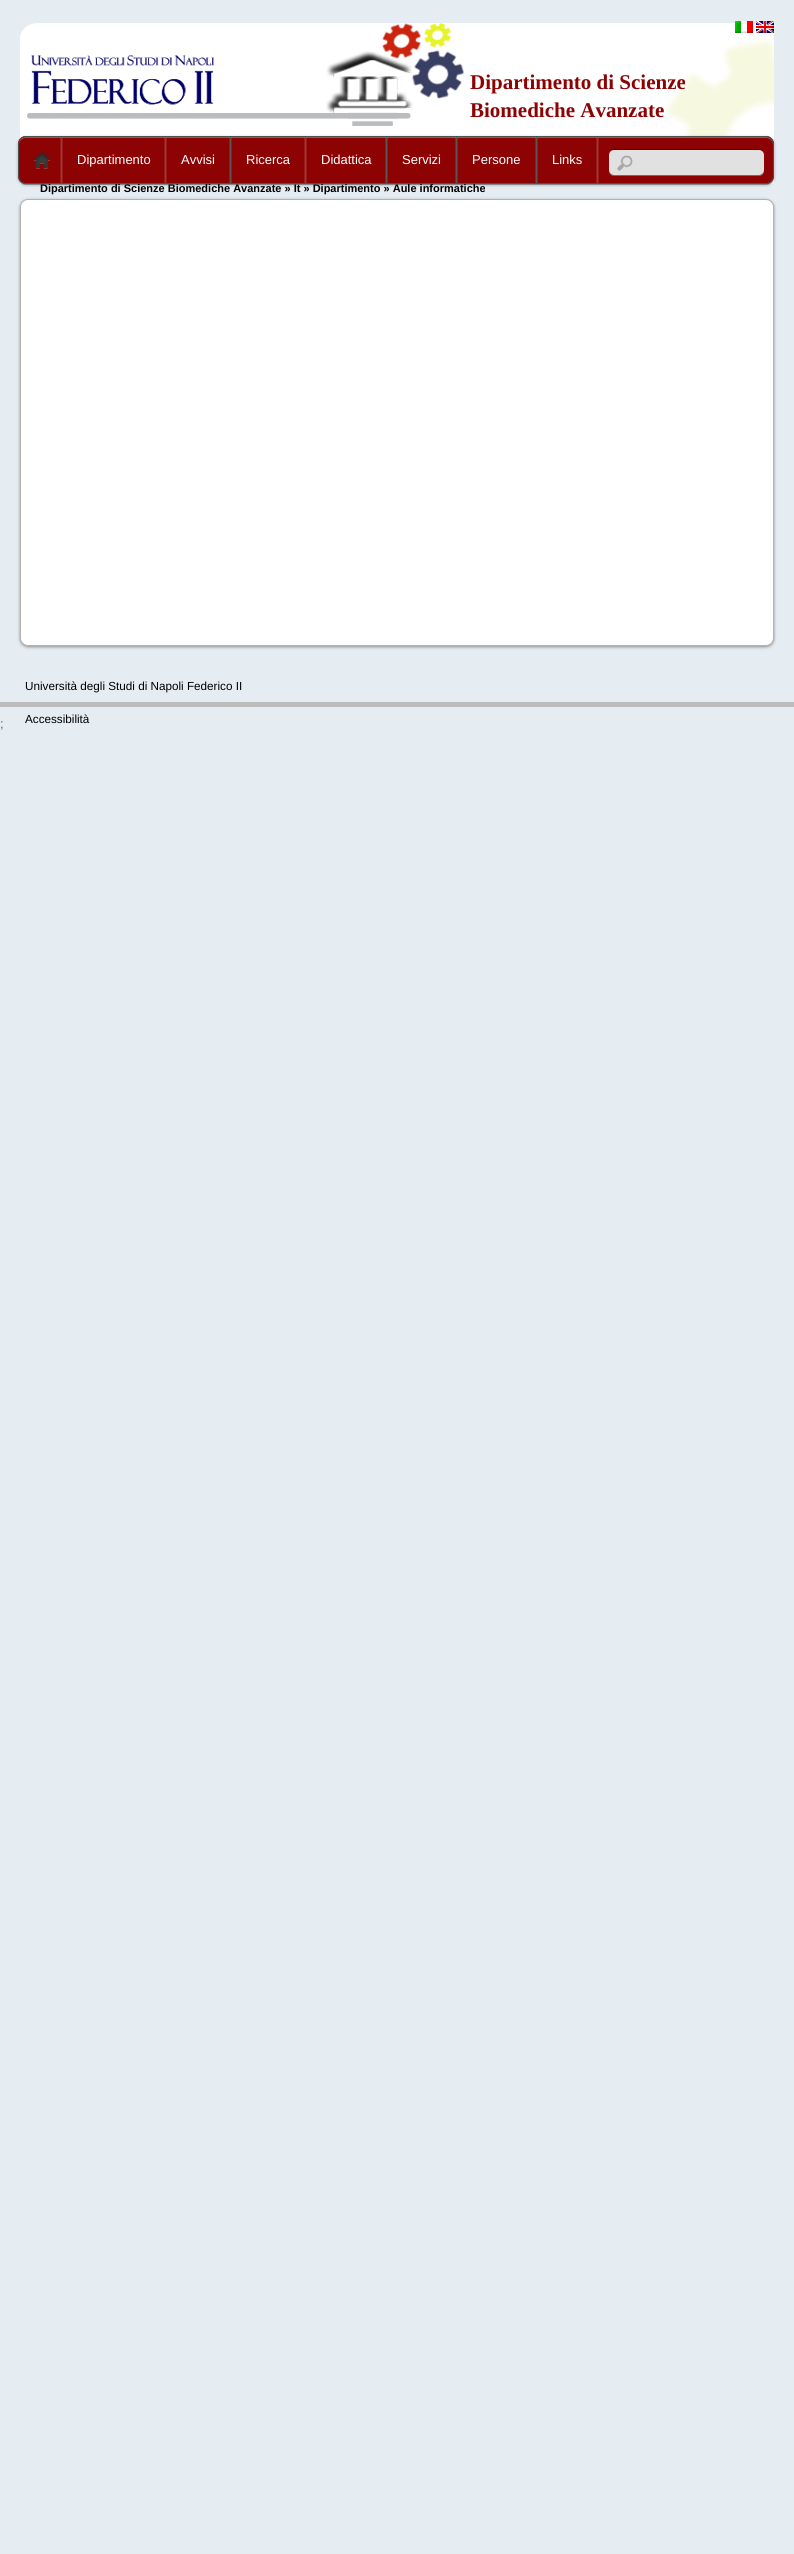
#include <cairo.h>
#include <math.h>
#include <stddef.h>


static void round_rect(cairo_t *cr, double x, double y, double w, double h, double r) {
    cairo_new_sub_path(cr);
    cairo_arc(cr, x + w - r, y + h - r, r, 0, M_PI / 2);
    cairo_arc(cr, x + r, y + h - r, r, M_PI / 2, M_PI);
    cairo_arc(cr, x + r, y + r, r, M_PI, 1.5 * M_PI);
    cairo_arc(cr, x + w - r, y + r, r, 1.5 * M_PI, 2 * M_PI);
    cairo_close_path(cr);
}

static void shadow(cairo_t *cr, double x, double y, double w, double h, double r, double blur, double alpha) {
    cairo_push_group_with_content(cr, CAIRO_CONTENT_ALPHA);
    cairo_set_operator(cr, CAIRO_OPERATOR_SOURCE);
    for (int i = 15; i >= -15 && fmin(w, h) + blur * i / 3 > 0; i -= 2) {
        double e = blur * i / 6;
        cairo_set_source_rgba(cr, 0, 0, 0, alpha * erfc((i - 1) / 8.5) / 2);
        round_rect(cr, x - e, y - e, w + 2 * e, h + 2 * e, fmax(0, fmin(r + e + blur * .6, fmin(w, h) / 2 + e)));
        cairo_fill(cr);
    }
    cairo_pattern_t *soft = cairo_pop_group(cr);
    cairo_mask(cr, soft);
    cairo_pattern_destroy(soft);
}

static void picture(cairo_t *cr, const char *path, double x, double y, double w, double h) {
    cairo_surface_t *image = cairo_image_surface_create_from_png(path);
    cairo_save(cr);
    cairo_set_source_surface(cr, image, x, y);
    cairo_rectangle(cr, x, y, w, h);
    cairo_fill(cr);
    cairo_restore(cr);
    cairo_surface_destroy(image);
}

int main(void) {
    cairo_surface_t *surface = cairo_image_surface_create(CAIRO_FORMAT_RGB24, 794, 2554);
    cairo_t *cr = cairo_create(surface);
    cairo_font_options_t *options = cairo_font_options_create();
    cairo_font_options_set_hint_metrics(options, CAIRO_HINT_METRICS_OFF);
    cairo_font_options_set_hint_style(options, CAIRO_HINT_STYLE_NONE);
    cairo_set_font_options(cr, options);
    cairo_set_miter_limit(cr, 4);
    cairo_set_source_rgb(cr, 0.898, 0.925, 0.949);
    cairo_paint(cr);
    picture(cr, "img1.png", 20, 23, 754, 161);
    picture(cr, "img2.png", 735, 21, 18, 12);
    picture(cr, "img3.png", 756, 21, 18, 12);
    picture(cr, "img4.png", 31, 55, 183, 50);
    cairo_select_font_face(cr, "Liberation Serif", CAIRO_FONT_SLANT_NORMAL, CAIRO_FONT_WEIGHT_BOLD);
    cairo_set_font_size(cr, 21);
    cairo_set_source_rgb(cr, 0.553, 0.012, 0.012);
    cairo_move_to(cr, 470, 89);
    cairo_show_text(cr, "Dipartimento di Scienze");
    cairo_move_to(cr, 470, 117);
    cairo_show_text(cr, "Biomediche Avanzate");
    cairo_set_source_rgb(cr, 0, 0, 0);
    shadow(cr, 18, 137, 756, 48, 8, 1.5, 0.3);
    cairo_select_font_face(cr, "Liberation Sans", CAIRO_FONT_SLANT_NORMAL, CAIRO_FONT_WEIGHT_BOLD);
    cairo_set_font_size(cr, 11);
    cairo_set_source_rgb(cr, 0, 0, 0);
    cairo_move_to(cr, 40, 192);
    cairo_show_text(cr, "Dipartimento di Scienze Biomediche Avanzate » It » Dipartimento » Aule informatiche");
    cairo_set_source_rgba(cr, 0, 0, 0, 0.3);
    cairo_new_path(cr);
    cairo_move_to(cr, 18, 176);
    cairo_curve_to(cr, 18, 181, 21, 185, 26, 185);
    cairo_line_to(cr, 766, 185);
    cairo_curve_to(cr, 771, 185, 774, 181, 774, 176);
    cairo_curve_to(cr, 774, 180, 770, 184, 766, 184);
    cairo_line_to(cr, 26, 184);
    cairo_curve_to(cr, 22, 184, 18, 180, 18, 176);
    cairo_close_path(cr);
    cairo_fill(cr);
    cairo_set_source_rgb(cr, 0.553, 0.012, 0.012);
    round_rect(cr, 18, 136, 756, 48, 8);
    cairo_fill(cr);
    cairo_set_source_rgb(cr, 0.686, 0.31, 0.31);
    cairo_new_path(cr);
    cairo_move_to(cr, 26, 138);
    cairo_line_to(cr, 766, 138);
    cairo_curve_to(cr, 770, 138, 773, 141, 773, 145);
    cairo_line_to(cr, 773, 144);
    cairo_curve_to(cr, 773, 140, 770, 137, 766, 137);
    cairo_line_to(cr, 26, 137);
    cairo_curve_to(cr, 22, 137, 19, 140, 19, 144);
    cairo_line_to(cr, 19, 145);
    cairo_curve_to(cr, 19, 141, 22, 138, 26, 138);
    cairo_close_path(cr);
    cairo_fill(cr);
    round_rect(cr, 18.5, 136.5, 755, 47, 7.5);
    cairo_set_source_rgb(cr, 0.314, 0.314, 0.314);
    cairo_set_line_width(cr, 1);
    cairo_stroke(cr);
    cairo_set_source_rgba(cr, 1, 1, 1, 0.1);
    cairo_rectangle(cr, 62, 137, 1, 46);
    cairo_fill(cr);
    cairo_rectangle(cr, 60, 137, 1, 46);
    cairo_fill(cr);
    cairo_set_source_rgb(cr, 0.341, 0.341, 0.341);
    cairo_rectangle(cr, 61, 137, 1, 46);
    cairo_fill(cr);
    picture(cr, "img5.png", 33, 152, 18, 17);
    cairo_set_source_rgba(cr, 1, 1, 1, 0.1);
    cairo_rectangle(cr, 166, 137, 1, 46);
    cairo_fill(cr);
    cairo_rectangle(cr, 164, 137, 1, 46);
    cairo_fill(cr);
    cairo_set_source_rgb(cr, 0.341, 0.341, 0.341);
    cairo_rectangle(cr, 165, 137, 1, 46);
    cairo_fill(cr);
    cairo_select_font_face(cr, "Liberation Sans", CAIRO_FONT_SLANT_NORMAL, CAIRO_FONT_WEIGHT_NORMAL);
    cairo_set_font_size(cr, 13);
    cairo_set_source_rgb(cr, 1, 1, 1);
    cairo_move_to(cr, 77, 164);
    cairo_show_text(cr, "Dipartimento");
    cairo_set_source_rgba(cr, 1, 1, 1, 0.1);
    cairo_rectangle(cr, 231, 137, 1, 46);
    cairo_fill(cr);
    cairo_rectangle(cr, 229, 137, 1, 46);
    cairo_fill(cr);
    cairo_set_source_rgb(cr, 0.341, 0.341, 0.341);
    cairo_rectangle(cr, 230, 137, 1, 46);
    cairo_fill(cr);
    cairo_set_source_rgb(cr, 1, 1, 1);
    cairo_move_to(cr, 181, 164);
    cairo_show_text(cr, "Avvisi");
    cairo_set_source_rgba(cr, 1, 1, 1, 0.1);
    cairo_rectangle(cr, 306, 137, 1, 46);
    cairo_fill(cr);
    cairo_rectangle(cr, 304, 137, 1, 46);
    cairo_fill(cr);
    cairo_set_source_rgb(cr, 0.341, 0.341, 0.341);
    cairo_rectangle(cr, 305, 137, 1, 46);
    cairo_fill(cr);
    cairo_set_source_rgb(cr, 1, 1, 1);
    cairo_move_to(cr, 246, 164);
    cairo_show_text(cr, "Ricerca");
    cairo_set_source_rgba(cr, 1, 1, 1, 0.1);
    cairo_rectangle(cr, 387, 137, 1, 46);
    cairo_fill(cr);
    cairo_rectangle(cr, 385, 137, 1, 46);
    cairo_fill(cr);
    cairo_set_source_rgb(cr, 0.341, 0.341, 0.341);
    cairo_rectangle(cr, 386, 137, 1, 46);
    cairo_fill(cr);
    cairo_set_source_rgb(cr, 1, 1, 1);
    cairo_move_to(cr, 321, 164);
    cairo_show_text(cr, "Didattica");
    cairo_set_source_rgba(cr, 1, 1, 1, 0.1);
    cairo_rectangle(cr, 457, 137, 1, 46);
    cairo_fill(cr);
    cairo_rectangle(cr, 455, 137, 1, 46);
    cairo_fill(cr);
    cairo_set_source_rgb(cr, 0.341, 0.341, 0.341);
    cairo_rectangle(cr, 456, 137, 1, 46);
    cairo_fill(cr);
    cairo_set_source_rgb(cr, 1, 1, 1);
    cairo_move_to(cr, 402, 164);
    cairo_show_text(cr, "Servizi");
    cairo_set_source_rgba(cr, 1, 1, 1, 0.1);
    cairo_rectangle(cr, 537, 137, 1, 46);
    cairo_fill(cr);
    cairo_rectangle(cr, 535, 137, 1, 46);
    cairo_fill(cr);
    cairo_set_source_rgb(cr, 0.341, 0.341, 0.341);
    cairo_rectangle(cr, 536, 137, 1, 46);
    cairo_fill(cr);
    cairo_set_source_rgb(cr, 1, 1, 1);
    cairo_move_to(cr, 472, 164);
    cairo_show_text(cr, "Persone");
    cairo_set_source_rgba(cr, 1, 1, 1, 0.1);
    cairo_rectangle(cr, 598, 137, 1, 46);
    cairo_fill(cr);
    cairo_rectangle(cr, 596, 137, 1, 46);
    cairo_fill(cr);
    cairo_set_source_rgb(cr, 0.341, 0.341, 0.341);
    cairo_rectangle(cr, 597, 137, 1, 46);
    cairo_fill(cr);
    cairo_set_source_rgb(cr, 1, 1, 1);
    cairo_move_to(cr, 552, 164);
    cairo_show_text(cr, "Links");
    cairo_set_source_rgb(cr, 0.686, 0.31, 0.31);
    cairo_new_path(cr);
    cairo_move_to(cr, 609, 170);
    cairo_line_to(cr, 609, 171);
    cairo_curve_to(cr, 609, 174, 611, 176, 614, 176);
    cairo_line_to(cr, 759, 176);
    cairo_curve_to(cr, 762, 176, 764, 174, 764, 171);
    cairo_line_to(cr, 764, 170);
    cairo_curve_to(cr, 764, 173, 762, 175, 759, 175);
    cairo_line_to(cr, 614, 175);
    cairo_curve_to(cr, 611, 175, 609, 173, 609, 170);
    cairo_close_path(cr);
    cairo_fill(cr);
    cairo_set_source_rgb(cr, 0.333, 0.008, 0.008);
    cairo_new_path(cr);
    cairo_move_to(cr, 614, 149);
    cairo_curve_to(cr, 611, 149, 609, 152, 609, 155);
    cairo_curve_to(cr, 609, 152, 611, 150, 614, 150);
    cairo_line_to(cr, 759, 150);
    cairo_curve_to(cr, 762, 150, 764, 152, 764, 155);
    cairo_curve_to(cr, 764, 152, 762, 149, 759, 149);
    cairo_close_path(cr);
    cairo_fill(cr);
    cairo_set_source_rgb(cr, 0.882, 0.882, 0.882);
    round_rect(cr, 609, 150, 155, 25, 5);
    cairo_fill(cr);
    picture(cr, "img6.png", 617, 155, 16, 16);
    cairo_set_source_rgb(cr, 0, 0, 0);
    shadow(cr, 20, 200, 754, 447, 8, 1.5, 0.4);
    cairo_set_source_rgb(cr, 1, 1, 1);
    round_rect(cr, 20.5, 199.5, 753, 446, 7.5);
    cairo_fill_preserve(cr);
    cairo_set_source_rgb(cr, 0.698, 0.698, 0.698);
    cairo_stroke(cr);
    cairo_set_font_size(cr, 11.7);
    cairo_set_source_rgb(cr, 0, 0, 0);
    cairo_move_to(cr, 25, 690);
    cairo_show_text(cr, "Università degli Studi di Napoli Federico II");
    cairo_move_to(cr, 25, 723);
    cairo_show_text(cr, "Accessibilità");
    cairo_set_source_rgb(cr, 0.733, 0.737, 0.745);
    cairo_rectangle(cr, 0, 702, 794, 5);
    cairo_fill(cr);
    cairo_set_font_size(cr, 13);
    cairo_set_source_rgb(cr, 0.4, 0.4, 0.4);
    cairo_move_to(cr, 0, 728);
    cairo_show_text(cr, ";");
    cairo_surface_write_to_png(surface, "page.png");
    cairo_font_options_destroy(options);
    cairo_destroy(cr);
    cairo_surface_destroy(surface);
    return 0;
}
